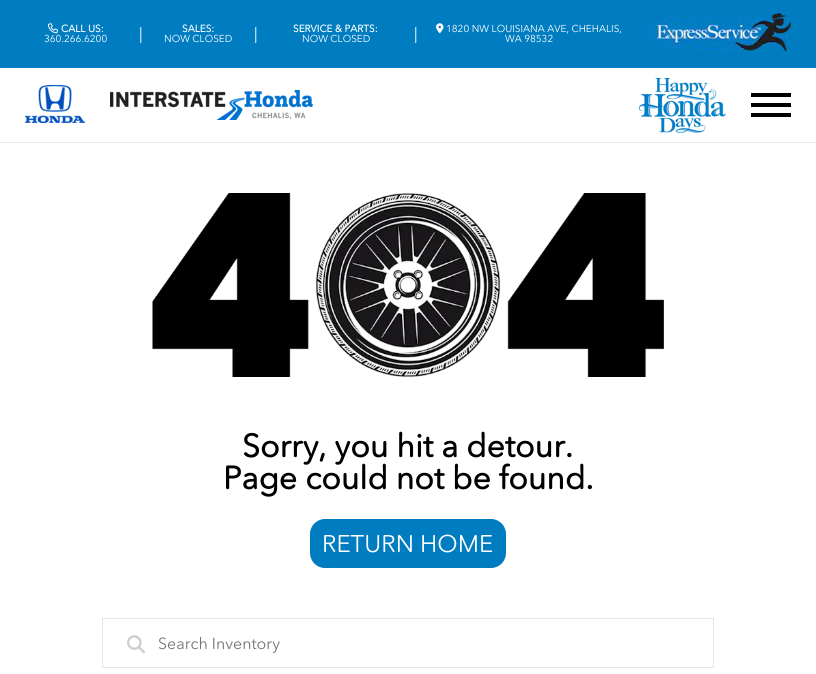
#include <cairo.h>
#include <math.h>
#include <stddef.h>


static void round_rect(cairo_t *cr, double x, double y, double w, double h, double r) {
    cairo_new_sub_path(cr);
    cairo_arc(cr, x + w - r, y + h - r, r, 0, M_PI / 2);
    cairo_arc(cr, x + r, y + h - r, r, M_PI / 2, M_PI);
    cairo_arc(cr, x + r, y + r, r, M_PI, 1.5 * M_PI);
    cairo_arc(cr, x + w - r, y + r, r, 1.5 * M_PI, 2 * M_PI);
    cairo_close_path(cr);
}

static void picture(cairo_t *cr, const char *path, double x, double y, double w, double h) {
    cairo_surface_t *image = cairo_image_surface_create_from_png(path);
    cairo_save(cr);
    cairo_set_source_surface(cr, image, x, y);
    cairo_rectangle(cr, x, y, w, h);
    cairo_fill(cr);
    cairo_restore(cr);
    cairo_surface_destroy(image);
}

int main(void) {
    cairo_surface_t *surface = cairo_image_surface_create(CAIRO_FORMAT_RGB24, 816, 674);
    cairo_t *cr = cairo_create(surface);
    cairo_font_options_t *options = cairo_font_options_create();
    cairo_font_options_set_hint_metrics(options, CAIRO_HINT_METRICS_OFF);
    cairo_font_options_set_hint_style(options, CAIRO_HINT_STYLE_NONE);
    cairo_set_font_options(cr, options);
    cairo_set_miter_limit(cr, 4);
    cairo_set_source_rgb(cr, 1, 1, 1);
    cairo_paint(cr);
    cairo_set_source_rgb(cr, 0, 0.486, 0.753);
    cairo_rectangle(cr, 0, 0, 816, 68);
    cairo_fill(cr);
    picture(cr, "img1.png", 48, 23, 10, 11);
    cairo_select_font_face(cr, "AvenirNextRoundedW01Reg", CAIRO_FONT_SLANT_NORMAL, CAIRO_FONT_WEIGHT_BOLD);
    cairo_set_font_size(cr, 10);
    cairo_set_source_rgb(cr, 1, 1, 1);
    cairo_move_to(cr, 61, 32);
    cairo_show_text(cr, "CALL US:");
    cairo_select_font_face(cr, "AvenirNextRoundedW01Reg", CAIRO_FONT_SLANT_NORMAL, CAIRO_FONT_WEIGHT_NORMAL);
    cairo_move_to(cr, 44, 42);
    cairo_show_text(cr, "360.266.6200");
    cairo_set_font_size(cr, 16);
    cairo_move_to(cr, 139, 39);
    cairo_show_text(cr, "|");
    cairo_select_font_face(cr, "AvenirNextRoundedW01Reg", CAIRO_FONT_SLANT_NORMAL, CAIRO_FONT_WEIGHT_BOLD);
    cairo_set_font_size(cr, 10);
    cairo_move_to(cr, 182, 32);
    cairo_show_text(cr, "SALES:");
    cairo_select_font_face(cr, "AvenirNextRoundedW01Reg", CAIRO_FONT_SLANT_NORMAL, CAIRO_FONT_WEIGHT_NORMAL);
    cairo_move_to(cr, 164, 42);
    cairo_show_text(cr, "NOW CLOSED");
    cairo_set_font_size(cr, 16);
    cairo_move_to(cr, 254, 39);
    cairo_show_text(cr, "|");
    cairo_select_font_face(cr, "AvenirNextRoundedW01Reg", CAIRO_FONT_SLANT_NORMAL, CAIRO_FONT_WEIGHT_BOLD);
    cairo_set_font_size(cr, 10);
    cairo_move_to(cr, 293, 32);
    cairo_show_text(cr, "SERVICE & PARTS:");
    cairo_select_font_face(cr, "AvenirNextRoundedW01Reg", CAIRO_FONT_SLANT_NORMAL, CAIRO_FONT_WEIGHT_NORMAL);
    cairo_move_to(cr, 302, 42);
    cairo_show_text(cr, "NOW CLOSED");
    cairo_set_font_size(cr, 16);
    cairo_move_to(cr, 414, 39);
    cairo_show_text(cr, "|");
    picture(cr, "img2.png", 436, 23, 8, 11);
    cairo_set_font_size(cr, 10);
    cairo_move_to(cr, 446, 32);
    cairo_show_text(cr, "1820 NW LOUISIANA AVE, CHEHALIS,");
    cairo_move_to(cr, 505, 42);
    cairo_show_text(cr, "WA 98532");
    picture(cr, "img3.png", 641, 13, 150, 39);
    cairo_set_source_rgb(cr, 0.914, 0.914, 0.914);
    cairo_rectangle(cr, 0, 142, 816, 1);
    cairo_fill(cr);
    picture(cr, "img4.png", 25, 85, 60, 38);
    picture(cr, "img5.png", 110, 90, 203, 30);
    picture(cr, "img6.png", 639, 78, 87, 55);
    cairo_set_source_rgb(cr, 0, 0, 0);
    cairo_rectangle(cr, 751, 93, 40, 4);
    cairo_fill(cr);
    cairo_rectangle(cr, 751, 103, 40, 4);
    cairo_fill(cr);
    cairo_rectangle(cr, 751, 113, 40, 4);
    cairo_fill(cr);
    picture(cr, "img7.png", 152, 193, 512, 184);
    cairo_select_font_face(cr, "AvenirNextRoundedW01Reg", CAIRO_FONT_SLANT_NORMAL, CAIRO_FONT_WEIGHT_BOLD);
    cairo_set_font_size(cr, 32);
    cairo_move_to(cr, 242, 457);
    cairo_show_text(cr, "Sorry, you hit a detour.");
    cairo_move_to(cr, 223, 489);
    cairo_show_text(cr, "Page could not be found.");
    cairo_set_source_rgb(cr, 0, 0.486, 0.753);
    round_rect(cr, 310, 519, 196, 49, 15);
    cairo_fill(cr);
    cairo_select_font_face(cr, "AvenirNextRoundedW01Reg", CAIRO_FONT_SLANT_NORMAL, CAIRO_FONT_WEIGHT_NORMAL);
    cairo_set_font_size(cr, 24);
    cairo_set_source_rgb(cr, 1, 1, 1);
    cairo_move_to(cr, 322, 552);
    cairo_show_text(cr, "RETURN HOME");
    cairo_rectangle(cr, 102.5, 618.5, 611, 49);
    cairo_set_source_rgb(cr, 0.898, 0.898, 0.898);
    cairo_set_line_width(cr, 1);
    cairo_stroke(cr);
    picture(cr, "img8.png", 127, 635, 18, 19);
    cairo_set_font_size(cr, 16);
    cairo_set_source_rgb(cr, 0.459, 0.459, 0.459);
    cairo_move_to(cr, 158, 649);
    cairo_show_text(cr, "Search Inventory");
    cairo_surface_write_to_png(surface, "page.png");
    cairo_font_options_destroy(options);
    cairo_destroy(cr);
    cairo_surface_destroy(surface);
    return 0;
}
